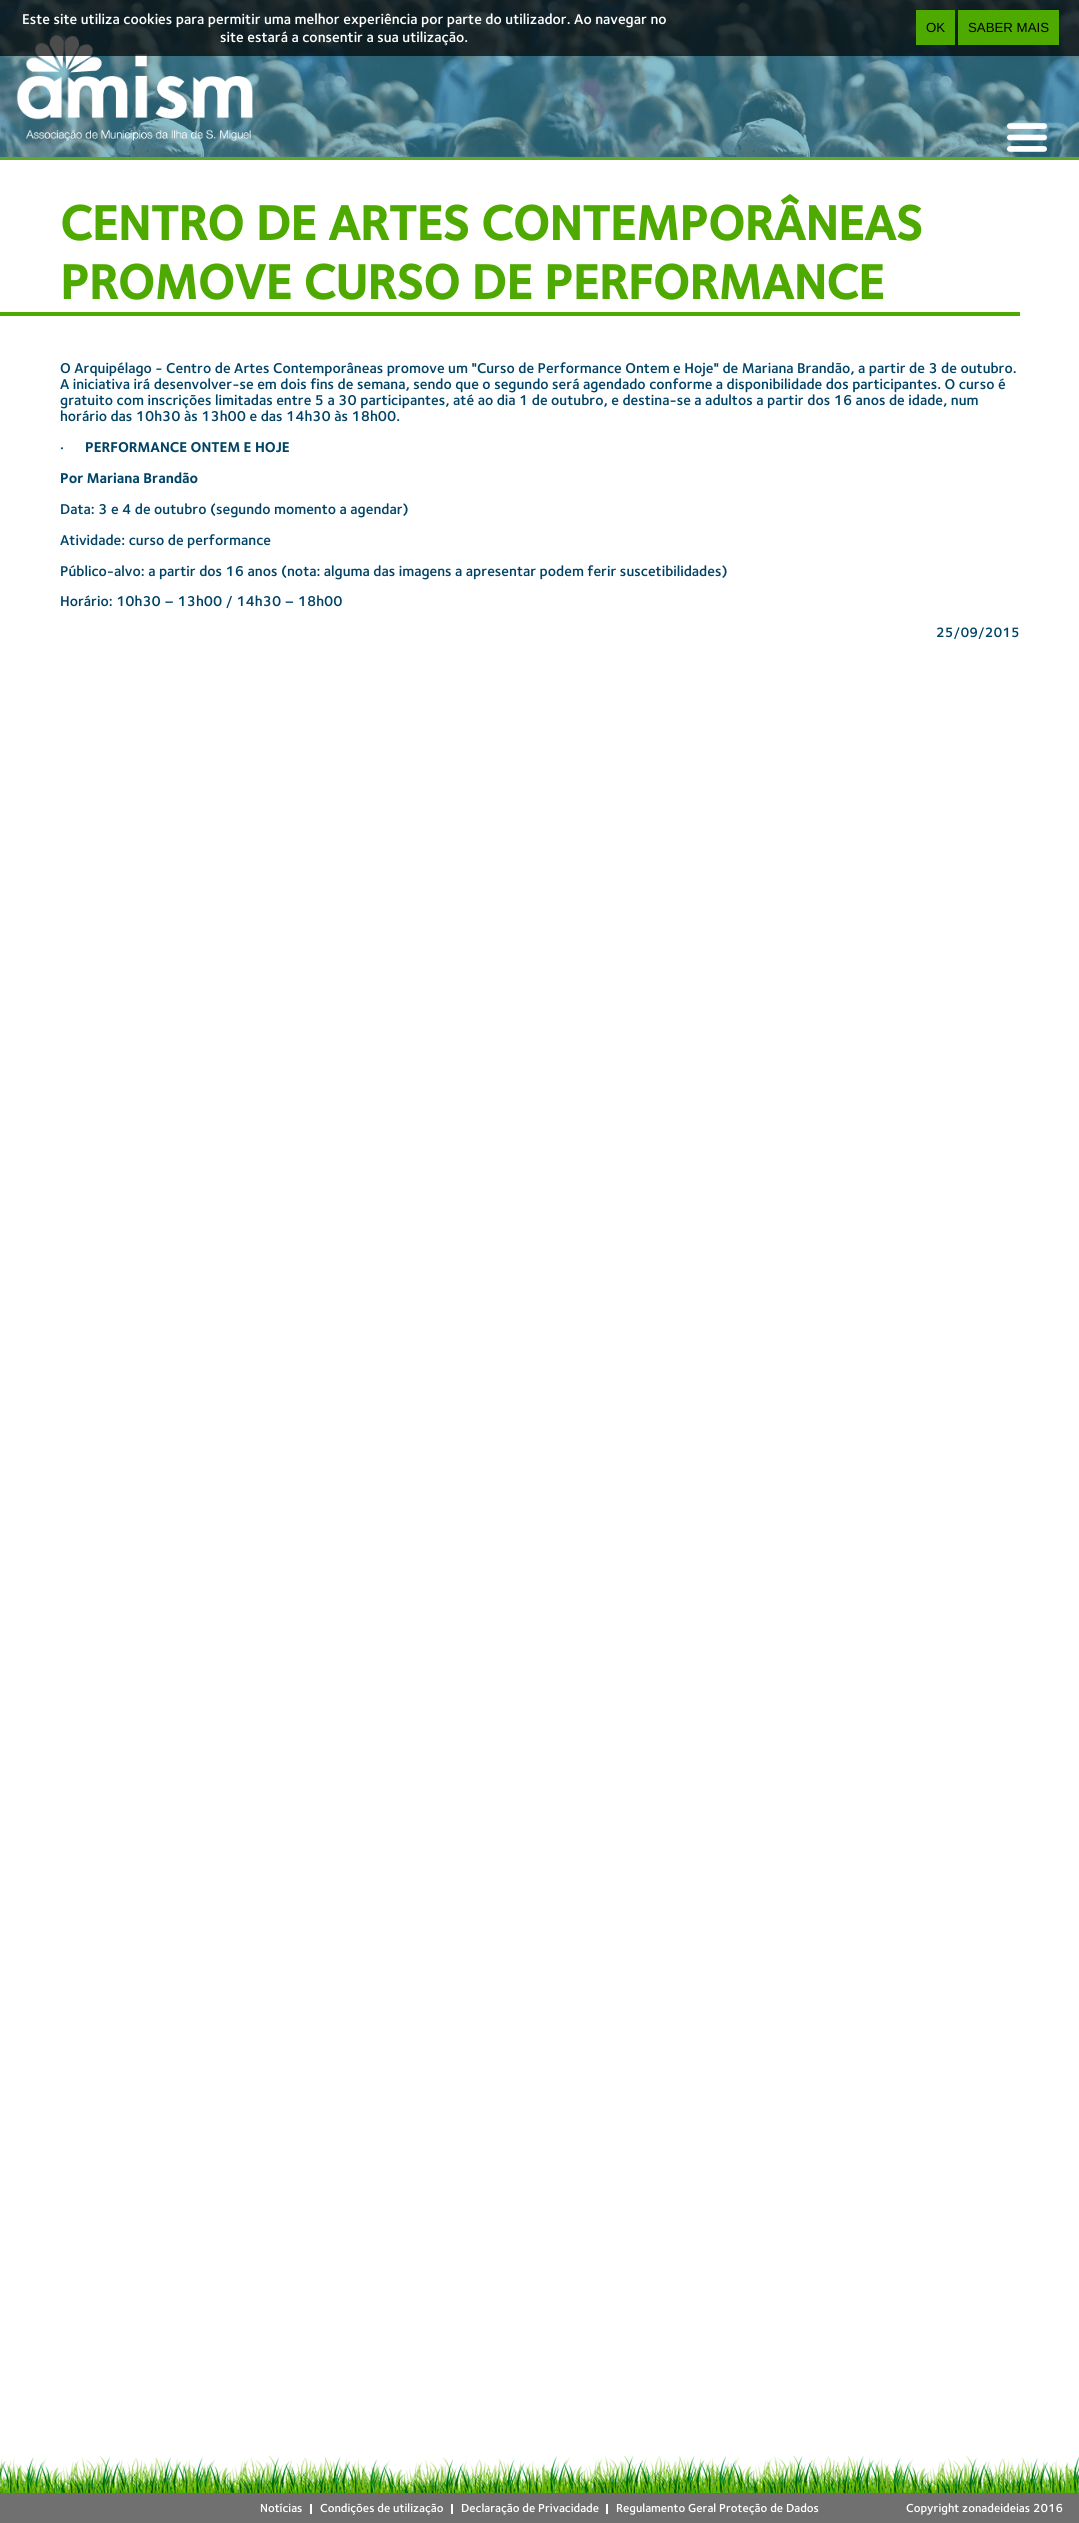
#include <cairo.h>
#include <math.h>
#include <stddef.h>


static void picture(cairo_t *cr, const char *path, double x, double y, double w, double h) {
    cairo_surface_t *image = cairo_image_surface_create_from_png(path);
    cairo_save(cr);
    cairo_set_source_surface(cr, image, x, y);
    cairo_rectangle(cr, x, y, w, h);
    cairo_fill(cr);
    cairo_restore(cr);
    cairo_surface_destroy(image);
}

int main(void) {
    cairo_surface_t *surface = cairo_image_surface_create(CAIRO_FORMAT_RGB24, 1079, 2523);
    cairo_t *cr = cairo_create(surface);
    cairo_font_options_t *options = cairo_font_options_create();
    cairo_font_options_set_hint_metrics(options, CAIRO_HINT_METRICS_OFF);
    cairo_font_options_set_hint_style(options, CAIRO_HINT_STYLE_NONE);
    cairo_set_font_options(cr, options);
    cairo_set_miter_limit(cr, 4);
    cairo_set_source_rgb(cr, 1, 1, 1);
    cairo_paint(cr);
    picture(cr, "img1.png", 0, 0, 1079, 157);
    picture(cr, "img2.png", 16, 35, 237, 106);
    cairo_set_source_rgba(cr, 0, 0, 0, 0.7);
    cairo_rectangle(cr, 0, 0, 1079, 56);
    cairo_fill(cr);
    cairo_select_font_face(cr, "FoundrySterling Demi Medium", CAIRO_FONT_SLANT_NORMAL, CAIRO_FONT_WEIGHT_NORMAL);
    cairo_set_font_size(cr, 14.7);
    cairo_set_source_rgb(cr, 1, 1, 1);
    cairo_move_to(cr, 22, 24);
    cairo_show_text(cr, "Este site utiliza cookies para permitir uma melhor experiência por parte do utilizador. Ao navegar no");
    cairo_move_to(cr, 220, 42);
    cairo_show_text(cr, "site estará a consentir a sua utilização.");
    cairo_set_source_rgb(cr, 0.306, 0.663, 0);
    cairo_rectangle(cr, 916, 10, 39, 35);
    cairo_fill(cr);
    cairo_select_font_face(cr, "Liberation Sans", CAIRO_FONT_SLANT_NORMAL, CAIRO_FONT_WEIGHT_NORMAL);
    cairo_set_font_size(cr, 13.25);
    cairo_set_source_rgb(cr, 0, 0, 0);
    cairo_move_to(cr, 926, 32);
    cairo_show_text(cr, "OK");
    cairo_set_source_rgb(cr, 0.306, 0.663, 0);
    cairo_rectangle(cr, 958, 10, 101, 35);
    cairo_fill(cr);
    cairo_set_source_rgb(cr, 0, 0, 0);
    cairo_move_to(cr, 968, 32);
    cairo_show_text(cr, "SABER MAIS");
    cairo_set_source_rgb(cr, 0.373, 0.663, 0.157);
    cairo_rectangle(cr, 0, 157, 1079, 3);
    cairo_fill(cr);
    picture(cr, "img3.png", 1007, 123, 40, 29);
    cairo_select_font_face(cr, "FoundrySterling Demi", CAIRO_FONT_SLANT_NORMAL, CAIRO_FONT_WEIGHT_BOLD);
    cairo_set_font_size(cr, 50);
    cairo_set_source_rgb(cr, 0.306, 0.663, 0);
    cairo_move_to(cr, 60, 240);
    cairo_show_text(cr, "CENTRO DE ARTES CONTEMPORÂNEAS");
    cairo_move_to(cr, 60, 299);
    cairo_show_text(cr, "PROMOVE CURSO DE PERFORMANCE");
    cairo_rectangle(cr, 0, 312, 1020, 4);
    cairo_fill(cr);
    cairo_select_font_face(cr, "FoundrySterling Demi Medium", CAIRO_FONT_SLANT_NORMAL, CAIRO_FONT_WEIGHT_NORMAL);
    cairo_set_font_size(cr, 14.7);
    cairo_set_source_rgb(cr, 0, 0.263, 0.404);
    cairo_move_to(cr, 60, 373);
    cairo_show_text(cr, "O Arquipélago - Centro de Artes Contemporâneas promove um \"Curso de Performance Ontem e Hoje\" de Mariana Brandão, a partir de 3 de outubro.");
    cairo_move_to(cr, 60, 389);
    cairo_show_text(cr, "A iniciativa irá desenvolver-se em dois fins de semana, sendo que o segundo será agendado conforme a disponibilidade dos participantes. O curso é");
    cairo_move_to(cr, 60, 405);
    cairo_show_text(cr, "gratuito com inscrições limitadas entre 5 a 30 participantes, até ao dia 1 de outubro, e destina-se a adultos a partir dos 16 anos de idade, num");
    cairo_move_to(cr, 60, 421);
    cairo_show_text(cr, "horário das 10h30 às 13h00 e das 14h30 às 18h00.");
    cairo_move_to(cr, 60, 452);
    cairo_show_text(cr, "·");
    cairo_select_font_face(cr, "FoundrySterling", CAIRO_FONT_SLANT_NORMAL, CAIRO_FONT_WEIGHT_BOLD);
    cairo_move_to(cr, 85, 452);
    cairo_show_text(cr, "PERFORMANCE ONTEM E HOJE");
    cairo_move_to(cr, 60, 483);
    cairo_show_text(cr, "Por Mariana Brandão");
    cairo_select_font_face(cr, "FoundrySterling Demi Medium", CAIRO_FONT_SLANT_NORMAL, CAIRO_FONT_WEIGHT_NORMAL);
    cairo_move_to(cr, 60, 514);
    cairo_show_text(cr, "Data: 3 e 4 de outubro (segundo momento a agendar)");
    cairo_move_to(cr, 60, 545);
    cairo_show_text(cr, "Atividade: curso de performance");
    cairo_move_to(cr, 60, 576);
    cairo_show_text(cr, "Público-alvo: a partir dos 16 anos (nota: alguma das imagens a apresentar podem ferir suscetibilidades)");
    cairo_move_to(cr, 60, 606);
    cairo_show_text(cr, "Horário: 10h30 – 13h00 / 14h30 – 18h00");
    cairo_set_font_size(cr, 14);
    cairo_move_to(cr, 936, 637);
    cairo_show_text(cr, "25/09/2015");
    picture(cr, "img4.png", 0, 2456, 1079, 37);
    cairo_set_source_rgb(cr, 0.439, 0.439, 0.439);
    cairo_rectangle(cr, 0, 2493, 1079, 30);
    cairo_fill(cr);
    cairo_set_font_size(cr, 12);
    cairo_set_source_rgb(cr, 1, 1, 1);
    cairo_move_to(cr, 260, 2512);
    cairo_show_text(cr, "Notícias");
    cairo_rectangle(cr, 310, 2504, 2, 10);
    cairo_fill(cr);
    cairo_move_to(cr, 320, 2512);
    cairo_show_text(cr, "Condições de utilização");
    cairo_rectangle(cr, 451, 2504, 2, 10);
    cairo_fill(cr);
    cairo_move_to(cr, 461, 2512);
    cairo_show_text(cr, "Declaração de Privacidade");
    cairo_rectangle(cr, 606, 2504, 2, 10);
    cairo_fill(cr);
    cairo_move_to(cr, 616, 2512);
    cairo_show_text(cr, "Regulamento Geral Proteção de Dados");
    cairo_move_to(cr, 906, 2512);
    cairo_show_text(cr, "Copyright zonadeideias 2016");
    cairo_surface_write_to_png(surface, "page.png");
    cairo_font_options_destroy(options);
    cairo_destroy(cr);
    cairo_surface_destroy(surface);
    return 0;
}
